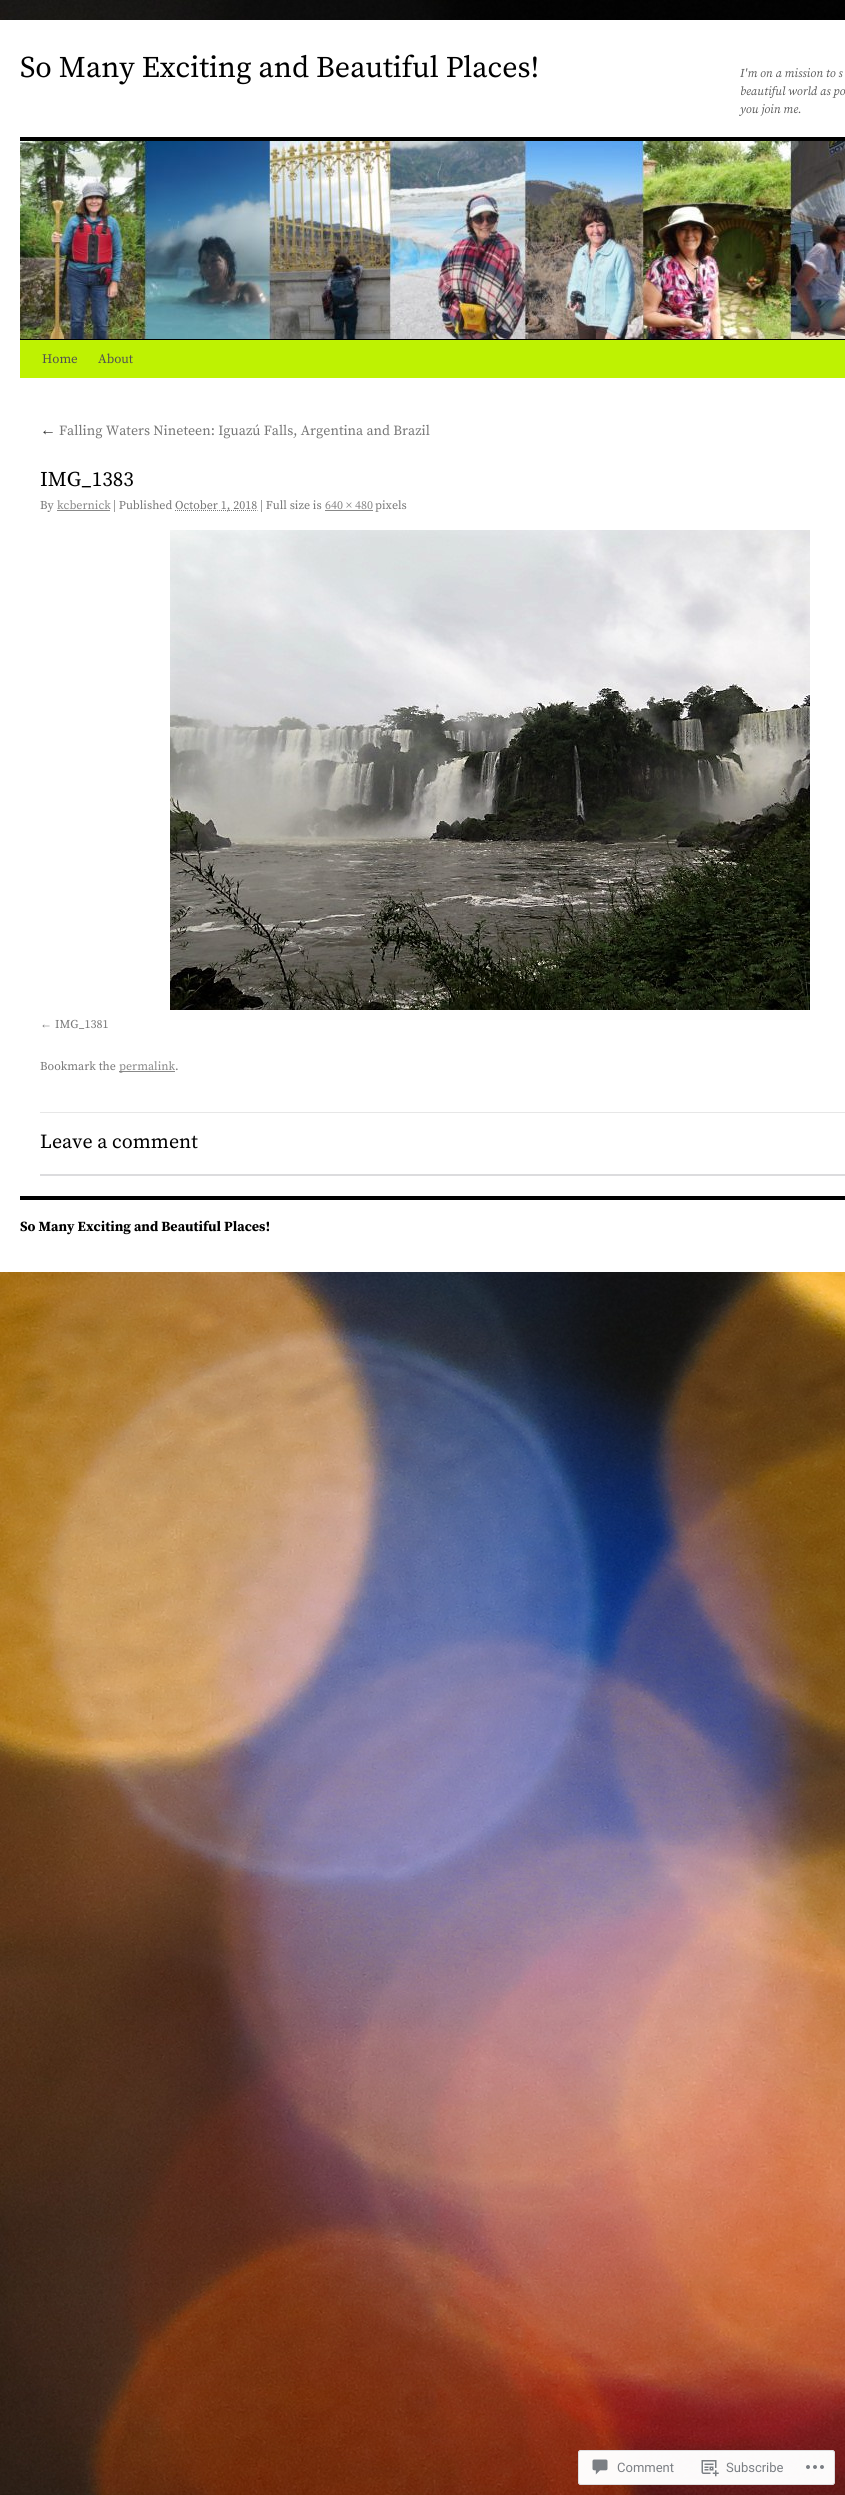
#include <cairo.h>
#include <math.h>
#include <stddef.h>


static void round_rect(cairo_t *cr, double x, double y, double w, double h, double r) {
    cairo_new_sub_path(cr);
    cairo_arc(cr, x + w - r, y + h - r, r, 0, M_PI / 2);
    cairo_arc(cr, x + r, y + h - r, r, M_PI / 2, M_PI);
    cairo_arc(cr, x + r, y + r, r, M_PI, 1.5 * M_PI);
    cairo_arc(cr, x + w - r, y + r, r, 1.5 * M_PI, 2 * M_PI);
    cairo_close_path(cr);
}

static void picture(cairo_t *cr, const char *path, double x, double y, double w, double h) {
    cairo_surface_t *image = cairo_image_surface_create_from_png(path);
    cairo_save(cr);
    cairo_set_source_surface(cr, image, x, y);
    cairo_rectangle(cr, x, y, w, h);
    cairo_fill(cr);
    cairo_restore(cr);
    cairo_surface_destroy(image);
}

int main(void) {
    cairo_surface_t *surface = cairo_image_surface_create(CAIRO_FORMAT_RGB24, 845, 2495);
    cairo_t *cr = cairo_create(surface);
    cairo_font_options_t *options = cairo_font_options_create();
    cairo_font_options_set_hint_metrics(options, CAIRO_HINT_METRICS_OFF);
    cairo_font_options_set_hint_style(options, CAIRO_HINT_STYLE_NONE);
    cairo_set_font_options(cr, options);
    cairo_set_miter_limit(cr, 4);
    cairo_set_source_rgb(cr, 1, 1, 1);
    cairo_paint(cr);
    picture(cr, "img1.png", 0, 0, 845, 2495);
    cairo_set_source_rgb(cr, 1, 1, 1);
    cairo_rectangle(cr, 0, 20, 845, 1252);
    cairo_fill(cr);
    cairo_select_font_face(cr, "Source Serif Pro", CAIRO_FONT_SLANT_NORMAL, CAIRO_FONT_WEIGHT_NORMAL);
    cairo_set_font_size(cr, 30);
    cairo_set_source_rgb(cr, 0, 0, 0);
    cairo_move_to(cr, 20, 77);
    cairo_show_text(cr, "So Many Exciting and Beautiful Places!");
    cairo_select_font_face(cr, "Source Serif Pro", CAIRO_FONT_SLANT_ITALIC, CAIRO_FONT_WEIGHT_NORMAL);
    cairo_set_font_size(cr, 12);
    cairo_set_source_rgb(cr, 0.349, 0.349, 0.349);
    cairo_move_to(cr, 740, 77);
    cairo_show_text(cr, "I'm on a mission to s");
    cairo_move_to(cr, 740, 95);
    cairo_show_text(cr, "beautiful world as po");
    cairo_move_to(cr, 740, 113);
    cairo_show_text(cr, "you join me.");
    cairo_set_source_rgb(cr, 0, 0, 0);
    cairo_rectangle(cr, 20, 137, 825, 4);
    cairo_fill(cr);
    cairo_rectangle(cr, 20, 339, 825, 1);
    cairo_fill(cr);
    picture(cr, "img2.png", 20, 141, 825, 198);
    cairo_set_source_rgb(cr, 0.745, 0.949, 0.008);
    cairo_rectangle(cr, 20, 340, 825, 38);
    cairo_fill(cr);
    cairo_select_font_face(cr, "Source Serif Pro", CAIRO_FONT_SLANT_NORMAL, CAIRO_FONT_WEIGHT_NORMAL);
    cairo_set_font_size(cr, 13);
    cairo_set_source_rgb(cr, 0.318, 0.318, 0.318);
    cairo_move_to(cr, 42, 363);
    cairo_show_text(cr, "Home");
    cairo_move_to(cr, 98, 363);
    cairo_show_text(cr, "About");
    cairo_select_font_face(cr, "Liberation Serif", CAIRO_FONT_SLANT_NORMAL, CAIRO_FONT_WEIGHT_NORMAL);
    cairo_set_font_size(cr, 16);
    cairo_set_source_rgb(cr, 0.2, 0.2, 0.2);
    cairo_move_to(cr, 40, 435);
    cairo_show_text(cr, "←");
    cairo_select_font_face(cr, "Source Serif Pro", CAIRO_FONT_SLANT_NORMAL, CAIRO_FONT_WEIGHT_NORMAL);
    cairo_set_font_size(cr, 14);
    cairo_set_source_rgb(cr, 0.467, 0.467, 0.467);
    cairo_move_to(cr, 59, 435);
    cairo_show_text(cr, "Falling Waters Nineteen: Iguazú Falls, Argentina and Brazil");
    cairo_set_font_size(cr, 21);
    cairo_set_source_rgb(cr, 0, 0, 0);
    cairo_move_to(cr, 40, 486);
    cairo_show_text(cr, "IMG_1383");
    cairo_set_font_size(cr, 12);
    cairo_set_source_rgb(cr, 0.467, 0.467, 0.467);
    cairo_move_to(cr, 40, 509);
    cairo_show_text(cr, "By");
    cairo_set_source_rgb(cr, 0.533, 0.533, 0.533);
    cairo_move_to(cr, 57, 509);
    cairo_show_text(cr, "kcbernick");
    cairo_rectangle(cr, 57, 510, 53, 1);
    cairo_fill(cr);
    cairo_set_source_rgb(cr, 0.467, 0.467, 0.467);
    cairo_move_to(cr, 113, 509);
    cairo_show_text(cr, "| Published");
    cairo_new_path(cr);
    cairo_move_to(cr, 175, 510.5);
    cairo_line_to(cr, 257.5, 510.5);
    cairo_set_line_width(cr, 1);
    cairo_set_dash(cr, (double[]){1, 1}, 2, 0);
    cairo_stroke(cr);
    cairo_move_to(cr, 175, 509);
    cairo_show_text(cr, "October 1, 2018 | Full size is");
    cairo_set_source_rgb(cr, 0.533, 0.533, 0.533);
    cairo_move_to(cr, 325, 509);
    cairo_show_text(cr, "640 × 480");
    cairo_rectangle(cr, 325, 510, 48, 1);
    cairo_fill(cr);
    cairo_set_source_rgb(cr, 0.467, 0.467, 0.467);
    cairo_move_to(cr, 375, 509);
    cairo_show_text(cr, "pixels");
    picture(cr, "img3.png", 170, 530, 640, 480);
    cairo_select_font_face(cr, "Liberation Serif", CAIRO_FONT_SLANT_NORMAL, CAIRO_FONT_WEIGHT_NORMAL);
    cairo_move_to(cr, 40, 1028);
    cairo_show_text(cr, "←");
    cairo_select_font_face(cr, "Source Serif Pro", CAIRO_FONT_SLANT_NORMAL, CAIRO_FONT_WEIGHT_NORMAL);
    cairo_move_to(cr, 55, 1028);
    cairo_show_text(cr, "IMG_1381");
    cairo_move_to(cr, 40, 1070);
    cairo_show_text(cr, "Bookmark the");
    cairo_set_source_rgb(cr, 0.533, 0.533, 0.533);
    cairo_rectangle(cr, 119, 1071, 56, 1);
    cairo_fill(cr);
    cairo_move_to(cr, 119, 1070);
    cairo_show_text(cr, "permalink");
    cairo_set_source_rgb(cr, 0.467, 0.467, 0.467);
    cairo_move_to(cr, 175, 1070);
    cairo_show_text(cr, ".");
    cairo_set_source_rgb(cr, 0.906, 0.906, 0.906);
    cairo_rectangle(cr, 40, 1112, 805, 1);
    cairo_fill(cr);
    cairo_set_font_size(cr, 20);
    cairo_set_source_rgb(cr, 0, 0, 0);
    cairo_move_to(cr, 40, 1148);
    cairo_show_text(cr, "Leave a comment");
    cairo_set_source_rgb(cr, 0.863, 0.863, 0.871);
    cairo_rectangle(cr, 40, 1174, 805, 2);
    cairo_fill(cr);
    cairo_set_source_rgb(cr, 0, 0, 0);
    cairo_rectangle(cr, 20, 1196, 825, 4);
    cairo_fill(cr);
    cairo_select_font_face(cr, "Source Serif Pro", CAIRO_FONT_SLANT_NORMAL, CAIRO_FONT_WEIGHT_BOLD);
    cairo_set_font_size(cr, 14);
    cairo_move_to(cr, 20, 1231);
    cairo_show_text(cr, "So Many Exciting and Beautiful Places!");
    cairo_set_source_rgba(cr, 1, 1, 1, 0.98);
    round_rect(cr, 578, 2450, 257, 35, 3);
    cairo_fill(cr);
    round_rect(cr, 578.5, 2450.5, 256, 34, 2.5);
    cairo_set_source_rgba(cr, 0.863, 0.863, 0.871, 0.98);
    cairo_set_dash(cr, NULL, 0, 0);
    cairo_stroke(cr);
    picture(cr, "img4.png", 592, 2459, 16, 16);
    cairo_select_font_face(cr, "Roboto", CAIRO_FONT_SLANT_NORMAL, CAIRO_FONT_WEIGHT_NORMAL);
    cairo_set_font_size(cr, 13);
    cairo_set_source_rgb(cr, 0.482, 0.498, 0.518);
    cairo_move_to(cr, 617, 2472);
    cairo_show_text(cr, "Comment");
    picture(cr, "img5.png", 701, 2460, 18, 17);
    cairo_move_to(cr, 726, 2472);
    cairo_show_text(cr, "Subscribe");
    picture(cr, "img6.png", 806, 2465, 18, 4);
    cairo_surface_write_to_png(surface, "page.png");
    cairo_font_options_destroy(options);
    cairo_destroy(cr);
    cairo_surface_destroy(surface);
    return 0;
}
